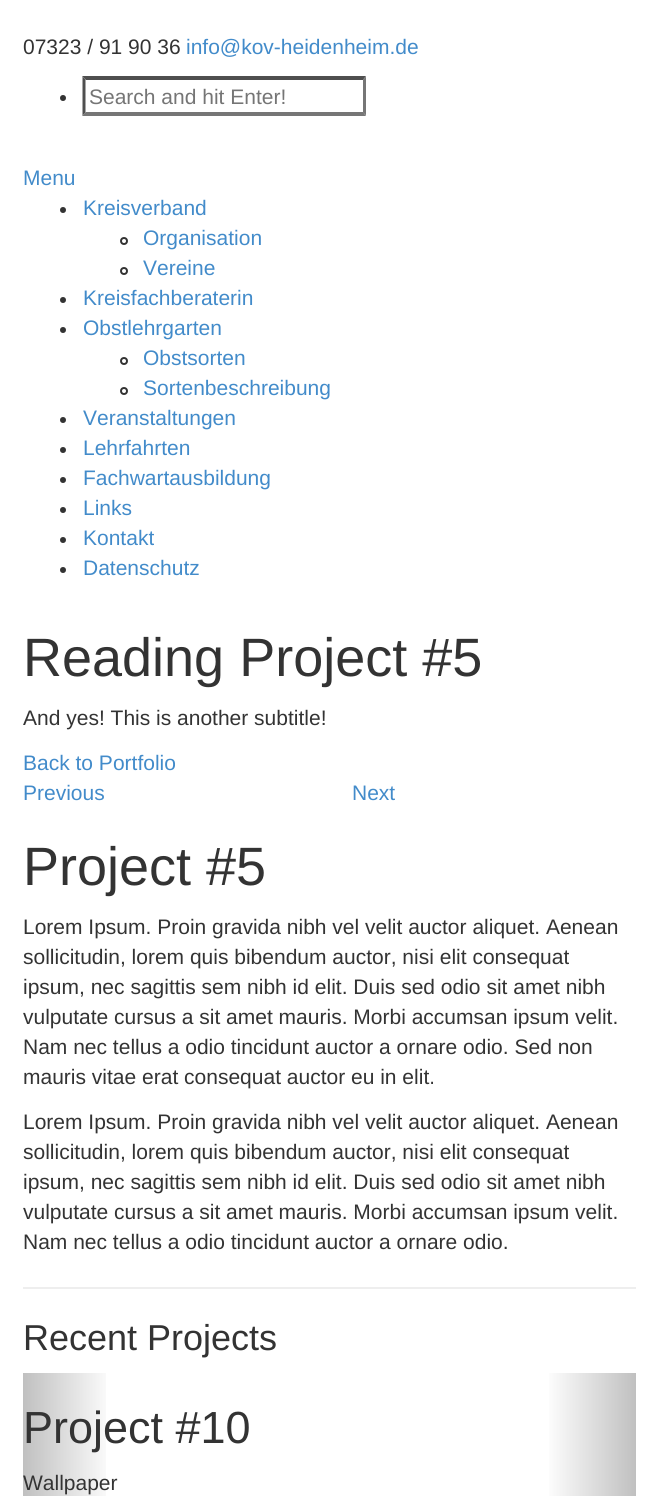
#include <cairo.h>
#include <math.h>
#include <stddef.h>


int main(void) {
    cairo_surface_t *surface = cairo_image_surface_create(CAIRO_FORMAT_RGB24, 658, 1496);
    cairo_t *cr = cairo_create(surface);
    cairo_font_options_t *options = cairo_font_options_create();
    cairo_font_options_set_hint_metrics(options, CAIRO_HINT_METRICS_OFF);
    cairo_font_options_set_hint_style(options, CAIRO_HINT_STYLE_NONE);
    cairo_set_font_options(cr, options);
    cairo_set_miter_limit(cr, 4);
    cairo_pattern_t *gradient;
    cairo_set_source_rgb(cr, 1, 1, 1);
    cairo_paint(cr);
    cairo_select_font_face(cr, "Liberation Sans", CAIRO_FONT_SLANT_NORMAL, CAIRO_FONT_WEIGHT_NORMAL);
    cairo_set_font_size(cr, 21);
    cairo_set_source_rgb(cr, 0.2, 0.2, 0.2);
    cairo_move_to(cr, 23, 54);
    cairo_show_text(cr, "07323 / 91 90 36");
    cairo_set_source_rgb(cr, 0.259, 0.545, 0.792);
    cairo_move_to(cr, 186, 54);
    cairo_show_text(cr, "info@kov-heidenheim.de");
    cairo_set_source_rgb(cr, 0.2, 0.2, 0.2);
    cairo_new_path(cr);
    cairo_arc(cr, 63, 98, 3, 0, 2 * M_PI);
    cairo_fill(cr);
    cairo_set_source_rgb(cr, 0.31, 0.31, 0.31);
    cairo_new_path(cr);
    cairo_move_to(cr, 82, 76);
    cairo_line_to(cr, 366, 76);
    cairo_line_to(cr, 363, 80);
    cairo_line_to(cr, 86, 80);
    cairo_close_path(cr);
    cairo_fill(cr);
    cairo_set_source_rgb(cr, 0.463, 0.463, 0.463);
    cairo_new_path(cr);
    cairo_move_to(cr, 366, 76.5);
    cairo_line_to(cr, 366, 115.5);
    cairo_line_to(cr, 363, 112.5);
    cairo_line_to(cr, 363, 79.5);
    cairo_close_path(cr);
    cairo_fill(cr);
    cairo_new_path(cr);
    cairo_move_to(cr, 366, 116);
    cairo_line_to(cr, 82, 116);
    cairo_line_to(cr, 86, 112);
    cairo_line_to(cr, 363, 112);
    cairo_close_path(cr);
    cairo_fill(cr);
    cairo_set_source_rgb(cr, 0.31, 0.31, 0.31);
    cairo_new_path(cr);
    cairo_move_to(cr, 82.5, 115.5);
    cairo_line_to(cr, 82.5, 76.5);
    cairo_line_to(cr, 85.5, 79.5);
    cairo_line_to(cr, 85.5, 112.5);
    cairo_close_path(cr);
    cairo_fill(cr);
    cairo_set_source_rgb(cr, 0.459, 0.459, 0.459);
    cairo_move_to(cr, 89, 104);
    cairo_show_text(cr, "Search and hit Enter!");
    cairo_set_source_rgb(cr, 0.259, 0.545, 0.792);
    cairo_move_to(cr, 23, 185);
    cairo_show_text(cr, "Menu");
    cairo_set_source_rgb(cr, 0.2, 0.2, 0.2);
    cairo_new_path(cr);
    cairo_arc(cr, 63, 210, 3, 0, 2 * M_PI);
    cairo_fill(cr);
    cairo_set_source_rgb(cr, 0.259, 0.545, 0.792);
    cairo_move_to(cr, 83, 215);
    cairo_show_text(cr, "Kreisverband");
    cairo_new_path(cr);
    cairo_arc(cr, 124, 241, 3, 0, 2 * M_PI);
    cairo_set_source_rgb(cr, 0.2, 0.2, 0.2);
    cairo_stroke(cr);
    cairo_set_source_rgb(cr, 0.259, 0.545, 0.792);
    cairo_move_to(cr, 143, 245);
    cairo_show_text(cr, "Organisation");
    cairo_new_path(cr);
    cairo_arc(cr, 124, 271, 3, 0, 2 * M_PI);
    cairo_set_source_rgb(cr, 0.2, 0.2, 0.2);
    cairo_stroke(cr);
    cairo_set_source_rgb(cr, 0.259, 0.545, 0.792);
    cairo_move_to(cr, 143, 275);
    cairo_show_text(cr, "Vereine");
    cairo_set_source_rgb(cr, 0.2, 0.2, 0.2);
    cairo_new_path(cr);
    cairo_arc(cr, 63, 300, 3, 0, 2 * M_PI);
    cairo_fill(cr);
    cairo_set_source_rgb(cr, 0.259, 0.545, 0.792);
    cairo_move_to(cr, 83, 305);
    cairo_show_text(cr, "Kreisfachberaterin");
    cairo_set_source_rgb(cr, 0.2, 0.2, 0.2);
    cairo_new_path(cr);
    cairo_arc(cr, 63, 330, 3, 0, 2 * M_PI);
    cairo_fill(cr);
    cairo_set_source_rgb(cr, 0.259, 0.545, 0.792);
    cairo_move_to(cr, 83, 335);
    cairo_show_text(cr, "Obstlehrgarten");
    cairo_new_path(cr);
    cairo_arc(cr, 124, 361, 3, 0, 2 * M_PI);
    cairo_set_source_rgb(cr, 0.2, 0.2, 0.2);
    cairo_stroke(cr);
    cairo_set_source_rgb(cr, 0.259, 0.545, 0.792);
    cairo_move_to(cr, 143, 365);
    cairo_show_text(cr, "Obstsorten");
    cairo_new_path(cr);
    cairo_arc(cr, 124, 391, 3, 0, 2 * M_PI);
    cairo_set_source_rgb(cr, 0.2, 0.2, 0.2);
    cairo_stroke(cr);
    cairo_set_source_rgb(cr, 0.259, 0.545, 0.792);
    cairo_move_to(cr, 143, 395);
    cairo_show_text(cr, "Sortenbeschreibung");
    cairo_set_source_rgb(cr, 0.2, 0.2, 0.2);
    cairo_new_path(cr);
    cairo_arc(cr, 63, 420, 3, 0, 2 * M_PI);
    cairo_fill(cr);
    cairo_set_source_rgb(cr, 0.259, 0.545, 0.792);
    cairo_move_to(cr, 83, 425);
    cairo_show_text(cr, "Veranstaltungen");
    cairo_set_source_rgb(cr, 0.2, 0.2, 0.2);
    cairo_new_path(cr);
    cairo_arc(cr, 63, 450, 3, 0, 2 * M_PI);
    cairo_fill(cr);
    cairo_set_source_rgb(cr, 0.259, 0.545, 0.792);
    cairo_move_to(cr, 83, 455);
    cairo_show_text(cr, "Lehrfahrten");
    cairo_set_source_rgb(cr, 0.2, 0.2, 0.2);
    cairo_new_path(cr);
    cairo_arc(cr, 63, 480, 3, 0, 2 * M_PI);
    cairo_fill(cr);
    cairo_set_source_rgb(cr, 0.259, 0.545, 0.792);
    cairo_move_to(cr, 83, 485);
    cairo_show_text(cr, "Fachwartausbildung");
    cairo_set_source_rgb(cr, 0.2, 0.2, 0.2);
    cairo_new_path(cr);
    cairo_arc(cr, 63, 510, 3, 0, 2 * M_PI);
    cairo_fill(cr);
    cairo_set_source_rgb(cr, 0.259, 0.545, 0.792);
    cairo_move_to(cr, 83, 515);
    cairo_show_text(cr, "Links");
    cairo_set_source_rgb(cr, 0.2, 0.2, 0.2);
    cairo_new_path(cr);
    cairo_arc(cr, 63, 540, 3, 0, 2 * M_PI);
    cairo_fill(cr);
    cairo_set_source_rgb(cr, 0.259, 0.545, 0.792);
    cairo_move_to(cr, 83, 545);
    cairo_show_text(cr, "Kontakt");
    cairo_set_source_rgb(cr, 0.2, 0.2, 0.2);
    cairo_new_path(cr);
    cairo_arc(cr, 63, 570, 3, 0, 2 * M_PI);
    cairo_fill(cr);
    cairo_set_source_rgb(cr, 0.259, 0.545, 0.792);
    cairo_move_to(cr, 83, 575);
    cairo_show_text(cr, "Datenschutz");
    cairo_set_font_size(cr, 54);
    cairo_set_source_rgb(cr, 0.2, 0.2, 0.2);
    cairo_move_to(cr, 23, 676);
    cairo_show_text(cr, "Reading Project #5");
    cairo_set_font_size(cr, 21);
    cairo_move_to(cr, 23, 725);
    cairo_show_text(cr, "And yes! This is another subtitle!");
    cairo_set_source_rgb(cr, 0.259, 0.545, 0.792);
    cairo_move_to(cr, 23, 770);
    cairo_show_text(cr, "Back to Portfolio");
    cairo_move_to(cr, 23, 800);
    cairo_show_text(cr, "Previous");
    cairo_move_to(cr, 352, 800);
    cairo_show_text(cr, "Next");
    cairo_set_font_size(cr, 54);
    cairo_set_source_rgb(cr, 0.2, 0.2, 0.2);
    cairo_move_to(cr, 23, 885);
    cairo_show_text(cr, "Project #5");
    cairo_set_font_size(cr, 21);
    cairo_move_to(cr, 23, 934);
    cairo_show_text(cr, "Lorem Ipsum. Proin gravida nibh vel velit auctor aliquet. Aenean");
    cairo_move_to(cr, 23, 964);
    cairo_show_text(cr, "sollicitudin, lorem quis bibendum auctor, nisi elit consequat");
    cairo_move_to(cr, 23, 994);
    cairo_show_text(cr, "ipsum, nec sagittis sem nibh id elit. Duis sed odio sit amet nibh");
    cairo_move_to(cr, 23, 1024);
    cairo_show_text(cr, "vulputate cursus a sit amet mauris. Morbi accumsan ipsum velit.");
    cairo_move_to(cr, 23, 1054);
    cairo_show_text(cr, "Nam nec tellus a odio tincidunt auctor a ornare odio. Sed non");
    cairo_move_to(cr, 23, 1084);
    cairo_show_text(cr, "mauris vitae erat consequat auctor eu in elit.");
    cairo_move_to(cr, 23, 1129);
    cairo_show_text(cr, "Lorem Ipsum. Proin gravida nibh vel velit auctor aliquet. Aenean");
    cairo_move_to(cr, 23, 1159);
    cairo_show_text(cr, "sollicitudin, lorem quis bibendum auctor, nisi elit consequat");
    cairo_move_to(cr, 23, 1189);
    cairo_show_text(cr, "ipsum, nec sagittis sem nibh id elit. Duis sed odio sit amet nibh");
    cairo_move_to(cr, 23, 1219);
    cairo_show_text(cr, "vulputate cursus a sit amet mauris. Morbi accumsan ipsum velit.");
    cairo_move_to(cr, 23, 1249);
    cairo_show_text(cr, "Nam nec tellus a odio tincidunt auctor a ornare odio.");
    cairo_set_source_rgb(cr, 0.933, 0.933, 0.933);
    cairo_rectangle(cr, 23, 1287, 613, 2);
    cairo_fill(cr);
    cairo_set_font_size(cr, 36);
    cairo_set_source_rgb(cr, 0.2, 0.2, 0.2);
    cairo_move_to(cr, 23, 1350);
    cairo_show_text(cr, "Recent Projects");
    gradient = cairo_pattern_create_linear(22, 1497, 114, 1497);
    cairo_pattern_add_color_stop_rgba(gradient, 0, 0, 0, 0, 0.25);
    cairo_pattern_add_color_stop_rgba(gradient, 1, 0, 0, 0, 0);
    cairo_set_source(cr, gradient);
    cairo_pattern_destroy(gradient);
    cairo_rectangle(cr, 23, 1373, 83, 123);
    cairo_fill(cr);
    gradient = cairo_pattern_create_linear(545, 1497, 636, 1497);
    cairo_pattern_add_color_stop_rgba(gradient, 0, 1, 1, 1, 1);
    cairo_pattern_add_color_stop_rgba(gradient, 1, 0.753, 0.753, 0.753, 1);
    cairo_set_source(cr, gradient);
    cairo_pattern_destroy(gradient);
    cairo_rectangle(cr, 549, 1373, 87, 123);
    cairo_fill(cr);
    cairo_set_font_size(cr, 45);
    cairo_set_source_rgb(cr, 0.2, 0.2, 0.2);
    cairo_move_to(cr, 23, 1443);
    cairo_show_text(cr, "Project #10");
    cairo_set_font_size(cr, 21);
    cairo_move_to(cr, 23, 1490);
    cairo_show_text(cr, "Wallpaper");
    cairo_surface_write_to_png(surface, "page.png");
    cairo_font_options_destroy(options);
    cairo_destroy(cr);
    cairo_surface_destroy(surface);
    return 0;
}
